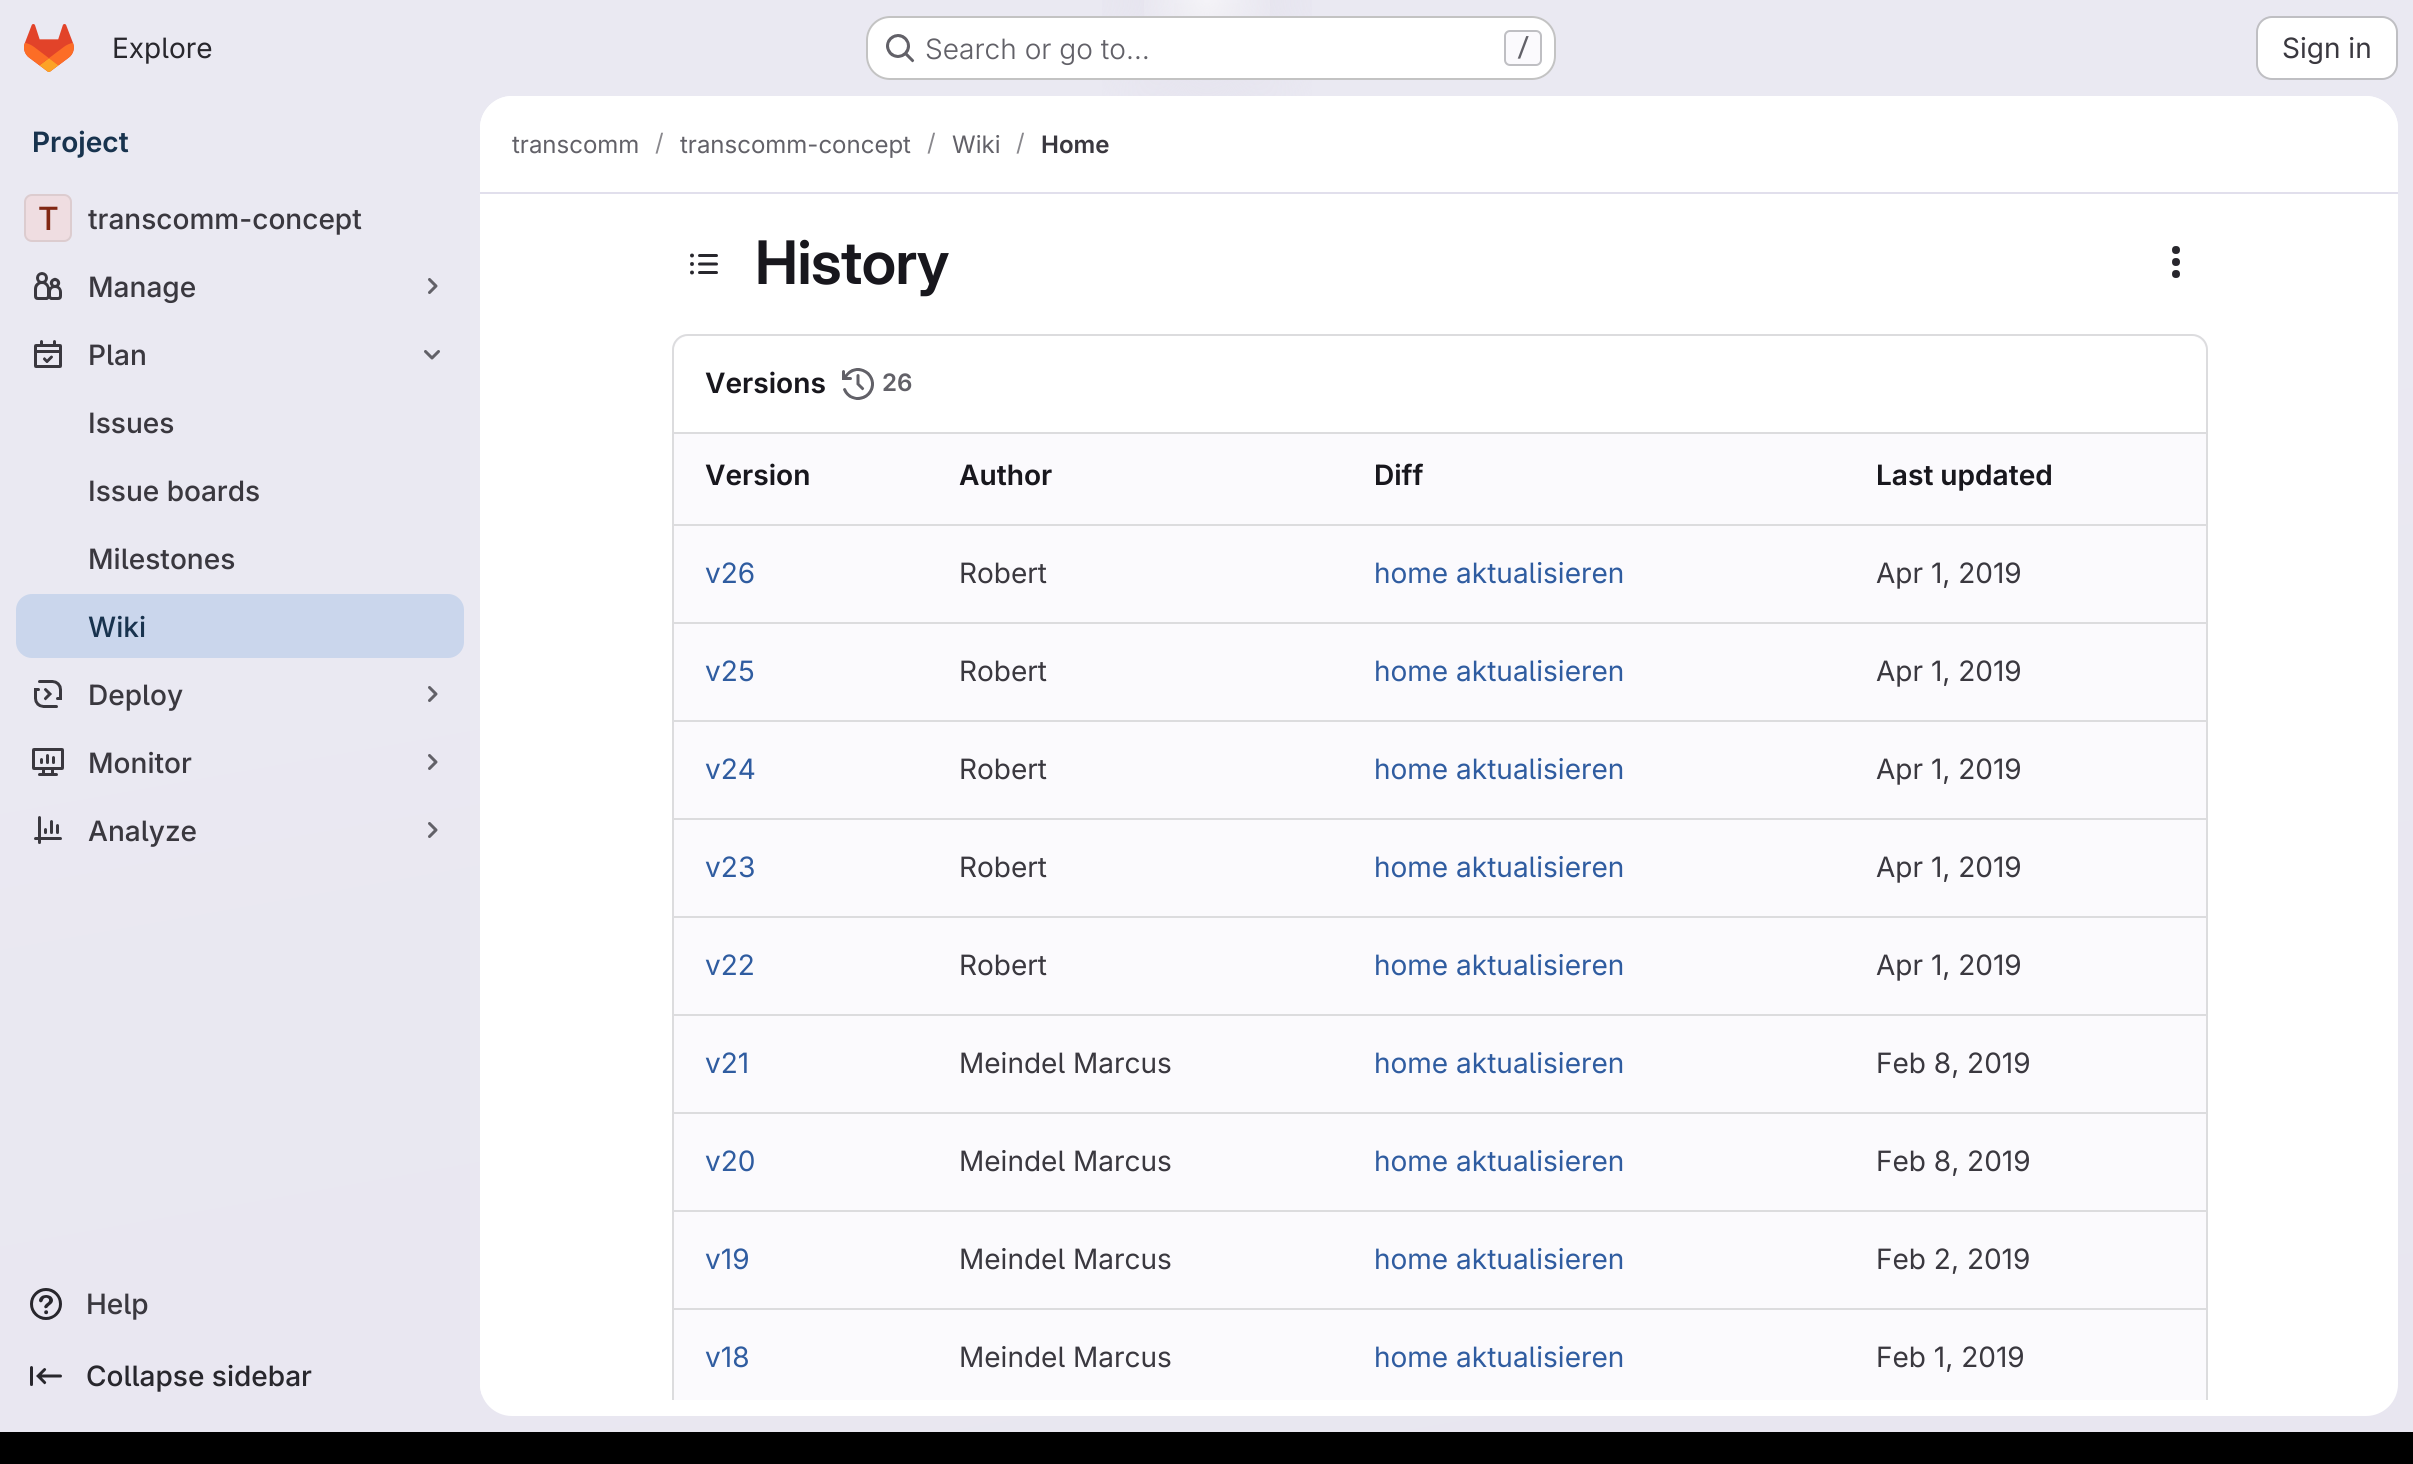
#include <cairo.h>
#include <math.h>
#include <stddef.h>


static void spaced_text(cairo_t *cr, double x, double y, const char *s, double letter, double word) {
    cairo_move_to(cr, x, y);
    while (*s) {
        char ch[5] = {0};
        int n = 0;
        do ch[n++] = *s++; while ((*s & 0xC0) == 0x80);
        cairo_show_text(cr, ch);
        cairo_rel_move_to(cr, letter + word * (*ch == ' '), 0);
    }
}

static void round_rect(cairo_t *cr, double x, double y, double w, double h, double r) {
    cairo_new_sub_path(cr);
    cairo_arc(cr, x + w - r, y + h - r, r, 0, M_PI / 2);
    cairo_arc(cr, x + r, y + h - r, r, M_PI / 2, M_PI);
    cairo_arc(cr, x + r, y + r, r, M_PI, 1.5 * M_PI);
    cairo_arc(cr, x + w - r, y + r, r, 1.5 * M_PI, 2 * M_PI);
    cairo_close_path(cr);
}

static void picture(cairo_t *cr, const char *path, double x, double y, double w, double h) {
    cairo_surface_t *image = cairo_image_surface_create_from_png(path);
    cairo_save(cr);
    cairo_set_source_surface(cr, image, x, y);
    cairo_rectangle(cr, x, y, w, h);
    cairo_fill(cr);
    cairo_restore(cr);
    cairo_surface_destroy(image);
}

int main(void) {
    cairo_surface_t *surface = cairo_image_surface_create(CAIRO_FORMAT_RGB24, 2413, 1464);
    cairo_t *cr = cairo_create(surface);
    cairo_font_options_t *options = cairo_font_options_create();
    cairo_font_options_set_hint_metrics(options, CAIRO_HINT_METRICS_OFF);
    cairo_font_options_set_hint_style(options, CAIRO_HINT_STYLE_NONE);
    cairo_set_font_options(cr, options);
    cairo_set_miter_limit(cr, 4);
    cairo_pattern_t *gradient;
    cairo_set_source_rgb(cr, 1, 1, 1);
    cairo_paint(cr);
    gradient = cairo_pattern_create_linear(1369, 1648, 1045, -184);
    cairo_pattern_add_color_stop_rgba(gradient, 0, 0.91, 0.902, 0.941, 1);
    cairo_pattern_add_color_stop_rgba(gradient, 0.7, 0.918, 0.914, 0.949, 1);
    cairo_set_source(cr, gradient);
    cairo_pattern_destroy(gradient);
    cairo_rectangle(cr, 0, 0, 2413, 1432);
    cairo_fill(cr);
    gradient = cairo_pattern_create_radial(0, 0, 0, 0, 0, 1);
    cairo_pattern_set_matrix(gradient, &(cairo_matrix_t){1.0 / 1207, 0, 0, 1.0 / 1464, -1.0 * 1207 / 1207, -1.0 * 0 / 1464});
    cairo_pattern_add_color_stop_rgba(gradient, 0, 0.894, 0.886, 0.929, 1);
    cairo_pattern_add_color_stop_rgba(gradient, 0.12, 0.894, 0.886, 0.929, 0);
    cairo_set_source(cr, gradient);
    cairo_pattern_destroy(gradient);
    cairo_rectangle(cr, 1102, 0, 210, 96);
    cairo_fill(cr);
    gradient = cairo_pattern_create_radial(0, 0, 0, 0, 0, 1);
    cairo_pattern_set_matrix(gradient, &(cairo_matrix_t){1.0 / 1207, 0, 0, 1.0 / 1464, -1.0 * 1207 / 1207, -1.0 * 0 / 1464});
    cairo_pattern_add_color_stop_rgba(gradient, 0, 0.894, 0.886, 0.925, 1);
    cairo_pattern_add_color_stop_rgba(gradient, 0.08, 0.894, 0.886, 0.925, 0);
    cairo_set_source(cr, gradient);
    cairo_pattern_destroy(gradient);
    cairo_rectangle(cr, 1174, 3, 66, 39);
    cairo_fill(cr);
    gradient = cairo_pattern_create_radial(1207, 0, 0, 1207, 0, 1897);
    cairo_pattern_add_color_stop_rgba(gradient, 0, 1, 1, 1, 0.6);
    cairo_pattern_add_color_stop_rgba(gradient, 0.04, 1, 1, 1, 0);
    cairo_set_source(cr, gradient);
    cairo_pattern_destroy(gradient);
    cairo_rectangle(cr, 1144, 0, 126, 64);
    cairo_fill(cr);
    picture(cr, "img1.png", 24, 24, 50, 48);
    cairo_select_font_face(cr, "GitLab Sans", CAIRO_FONT_SLANT_NORMAL, CAIRO_FONT_WEIGHT_NORMAL);
    cairo_set_font_size(cr, 28);
    cairo_set_source_rgb(cr, 0.157, 0.153, 0.176);
    cairo_move_to(cr, 112, 58);
    cairo_show_text(cr, "Explore");
    cairo_set_source_rgb(cr, 1, 1, 1);
    round_rect(cr, 866, 16, 690, 64, 24);
    cairo_fill(cr);
    round_rect(cr, 867, 17, 688, 62, 23);
    cairo_set_source_rgba(cr, 0.02, 0.02, 0.024, 0.24);
    cairo_stroke(cr);
    picture(cr, "img2.png", 886, 34, 29, 29);
    cairo_select_font_face(cr, "GitLab Sans Light", CAIRO_FONT_SLANT_NORMAL, CAIRO_FONT_WEIGHT_NORMAL);
    cairo_set_source_rgb(cr, 0.384, 0.38, 0.408);
    cairo_move_to(cr, 925, 59);
    cairo_show_text(cr, "Search or go to…");
    cairo_set_source_rgb(cr, 0.984, 0.98, 0.992);
    round_rect(cr, 1505, 31, 36, 34, 5);
    cairo_fill_preserve(cr);
    cairo_set_source_rgb(cr, 0.749, 0.749, 0.765);
    cairo_stroke(cr);
    cairo_select_font_face(cr, "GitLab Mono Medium", CAIRO_FONT_SLANT_NORMAL, CAIRO_FONT_WEIGHT_NORMAL);
    cairo_set_font_size(cr, 24);
    cairo_set_source_rgb(cr, 0.384, 0.38, 0.408);
    cairo_move_to(cr, 1516, 56);
    cairo_show_text(cr, "/");
    cairo_set_source_rgb(cr, 1, 1, 1);
    round_rect(cr, 2257, 17, 140, 62, 15);
    cairo_fill_preserve(cr);
    cairo_set_source_rgb(cr, 0.749, 0.749, 0.765);
    cairo_stroke(cr);
    cairo_select_font_face(cr, "GitLab Sans", CAIRO_FONT_SLANT_NORMAL, CAIRO_FONT_WEIGHT_NORMAL);
    cairo_set_font_size(cr, 28);
    cairo_set_source_rgb(cr, 0.227, 0.22, 0.247);
    cairo_move_to(cr, 2282, 58);
    cairo_show_text(cr, "Sign in");
    cairo_select_font_face(cr, "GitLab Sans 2 SemiBold", CAIRO_FONT_SLANT_NORMAL, CAIRO_FONT_WEIGHT_NORMAL);
    cairo_set_source_rgb(cr, 0.094, 0.2, 0.306);
    cairo_move_to(cr, 32, 152);
    cairo_show_text(cr, "Project");
    cairo_set_source_rgb(cr, 0.937, 0.867, 0.882);
    round_rect(cr, 24, 194, 48, 48, 8);
    cairo_fill(cr);
    round_rect(cr, 25, 195, 46, 46, 7);
    cairo_set_source_rgba(cr, 0.02, 0.02, 0.024, 0.08);
    cairo_stroke(cr);
    cairo_select_font_face(cr, "GitLab Sans 2 Medium", CAIRO_FONT_SLANT_NORMAL, CAIRO_FONT_WEIGHT_NORMAL);
    cairo_set_font_size(cr, 32);
    cairo_set_source_rgb(cr, 0.506, 0.153, 0.075);
    cairo_move_to(cr, 38, 230);
    cairo_show_text(cr, "T");
    cairo_select_font_face(cr, "GitLab Sans Medium", CAIRO_FONT_SLANT_NORMAL, CAIRO_FONT_WEIGHT_NORMAL);
    cairo_set_font_size(cr, 28);
    cairo_set_source_rgb(cr, 0.227, 0.22, 0.247);
    cairo_move_to(cr, 88, 229);
    cairo_show_text(cr, "transcomm-concept");
    picture(cr, "img3.png", 34, 272, 28, 28);
    cairo_move_to(cr, 88, 297);
    cairo_show_text(cr, "Manage");
    cairo_new_path(cr);
    cairo_move_to(cr, 429.5, 279.5);
    cairo_line_to(cr, 436, 286);
    cairo_line_to(cr, 429.5, 292.5);
    cairo_set_source_rgb(cr, 0.384, 0.38, 0.408);
    cairo_set_line_width(cr, 3);
    cairo_set_line_cap(cr, CAIRO_LINE_CAP_ROUND);
    cairo_set_line_join(cr, CAIRO_LINE_JOIN_ROUND);
    cairo_stroke(cr);
    picture(cr, "img4.png", 34, 340, 28, 28);
    cairo_set_source_rgb(cr, 0.227, 0.22, 0.247);
    cairo_move_to(cr, 88, 365);
    cairo_show_text(cr, "Plan");
    cairo_new_path(cr);
    cairo_move_to(cr, 438.5, 351.5);
    cairo_line_to(cr, 432, 358);
    cairo_line_to(cr, 425.5, 351.5);
    cairo_set_source_rgb(cr, 0.384, 0.38, 0.408);
    cairo_stroke(cr);
    cairo_set_source_rgb(cr, 0.227, 0.22, 0.247);
    cairo_move_to(cr, 88, 433);
    cairo_show_text(cr, "Issues");
    cairo_move_to(cr, 88, 501);
    cairo_show_text(cr, "Issue boards");
    cairo_move_to(cr, 88, 569);
    cairo_show_text(cr, "Milestones");
    cairo_set_source_rgb(cr, 0.792, 0.839, 0.922);
    round_rect(cr, 16, 594, 448, 64, 16);
    cairo_fill(cr);
    cairo_set_source_rgb(cr, 0.094, 0.2, 0.306);
    cairo_move_to(cr, 88, 637);
    cairo_show_text(cr, "Wiki");
    picture(cr, "img5.png", 34, 680, 28, 28);
    cairo_set_source_rgb(cr, 0.227, 0.22, 0.247);
    cairo_move_to(cr, 88, 705);
    cairo_show_text(cr, "Deploy");
    cairo_new_path(cr);
    cairo_move_to(cr, 429.5, 687.5);
    cairo_line_to(cr, 436, 694);
    cairo_line_to(cr, 429.5, 700.5);
    cairo_set_source_rgb(cr, 0.384, 0.38, 0.408);
    cairo_stroke(cr);
    picture(cr, "img6.png", 32, 748, 32, 28);
    cairo_set_source_rgb(cr, 0.227, 0.22, 0.247);
    cairo_move_to(cr, 88, 773);
    cairo_show_text(cr, "Monitor");
    cairo_new_path(cr);
    cairo_move_to(cr, 429.5, 755.5);
    cairo_line_to(cr, 436, 762);
    cairo_line_to(cr, 429.5, 768.5);
    cairo_set_source_rgb(cr, 0.384, 0.38, 0.408);
    cairo_stroke(cr);
    picture(cr, "img7.png", 34, 816, 28, 28);
    cairo_set_source_rgb(cr, 0.227, 0.22, 0.247);
    cairo_move_to(cr, 88, 841);
    cairo_show_text(cr, "Analyze");
    cairo_new_path(cr);
    cairo_move_to(cr, 429.5, 823.5);
    cairo_line_to(cr, 436, 830);
    cairo_line_to(cr, 429.5, 836.5);
    cairo_set_source_rgb(cr, 0.384, 0.38, 0.408);
    cairo_stroke(cr);
    picture(cr, "img8.png", 30, 1288, 32, 32);
    cairo_set_source_rgb(cr, 0.227, 0.22, 0.247);
    cairo_move_to(cr, 86, 1314);
    cairo_show_text(cr, "Help");
    picture(cr, "img9.png", 30, 1366, 32, 20);
    cairo_set_source_rgb(cr, 0.157, 0.153, 0.176);
    cairo_move_to(cr, 86, 1386);
    cairo_show_text(cr, "Collapse sidebar");
    cairo_set_source_rgb(cr, 1, 1, 1);
    round_rect(cr, 480, 96, 1918, 1320, 32);
    cairo_fill(cr);
    cairo_new_path(cr);
    cairo_move_to(cr, 512, 96);
    cairo_line_to(cr, 2366, 96);
    cairo_curve_to(cr, 2383.5, 96, 2398, 110.5, 2398, 128);
    cairo_line_to(cr, 2398, 194);
    cairo_line_to(cr, 480, 194);
    cairo_line_to(cr, 480, 128);
    cairo_curve_to(cr, 480, 110.5, 494.5, 96, 512, 96);
    cairo_close_path(cr);
    cairo_fill(cr);
    cairo_set_source_rgb(cr, 0.882, 0.875, 0.925);
    cairo_rectangle(cr, 480, 192, 1918, 2);
    cairo_fill(cr);
    cairo_select_font_face(cr, "GitLab Sans", CAIRO_FONT_SLANT_NORMAL, CAIRO_FONT_WEIGHT_NORMAL);
    cairo_set_font_size(cr, 24);
    cairo_set_source_rgb(cr, 0.384, 0.38, 0.408);
    cairo_move_to(cr, 512, 153);
    cairo_show_text(cr, "transcomm");
    cairo_set_source_rgb(cr, 0.537, 0.533, 0.553);
    cairo_move_to(cr, 655, 151);
    cairo_show_text(cr, "/");
    cairo_set_source_rgb(cr, 0.384, 0.38, 0.408);
    cairo_move_to(cr, 680, 153);
    cairo_show_text(cr, "transcomm-concept");
    cairo_set_source_rgb(cr, 0.537, 0.533, 0.553);
    cairo_move_to(cr, 927, 151);
    cairo_show_text(cr, "/");
    cairo_set_source_rgb(cr, 0.384, 0.38, 0.408);
    cairo_move_to(cr, 952, 153);
    cairo_show_text(cr, "Wiki");
    cairo_set_source_rgb(cr, 0.537, 0.533, 0.553);
    cairo_move_to(cr, 1016, 151);
    cairo_show_text(cr, "/");
    cairo_select_font_face(cr, "GitLab Sans 2 SemiBold", CAIRO_FONT_SLANT_NORMAL, CAIRO_FONT_WEIGHT_NORMAL);
    cairo_set_source_rgb(cr, 0.227, 0.22, 0.247);
    cairo_move_to(cr, 1041, 153);
    cairo_show_text(cr, "Home");
    cairo_save(cr);
    round_rect(cr, 480, 96, 1918, 1320, 32);
    cairo_clip(cr);
    cairo_set_source_rgb(cr, 1, 1, 1);
    cairo_rectangle(cr, 480, 194, 2, 1201);
    cairo_fill(cr);
    cairo_restore(cr);
    picture(cr, "img10.png", 690, 253, 28, 22);
    cairo_select_font_face(cr, "GitLab Sans SemiBold", CAIRO_FONT_SLANT_NORMAL, CAIRO_FONT_WEIGHT_NORMAL);
    cairo_set_font_size(cr, 60);
    cairo_set_source_rgb(cr, 0.094, 0.09, 0.114);
    spaced_text(cr, 755, 284, "History", -0.5, 0);
    picture(cr, "img11.png", 2172, 246, 8, 32);
    cairo_set_source_rgb(cr, 0.984, 0.98, 0.992);
    cairo_new_path(cr);
    cairo_move_to(cr, 688, 334);
    cairo_line_to(cr, 2192, 334);
    cairo_curve_to(cr, 2201, 334, 2208, 341, 2208, 350);
    cairo_line_to(cr, 2208, 1400);
    cairo_line_to(cr, 672, 1400);
    cairo_line_to(cr, 672, 350);
    cairo_curve_to(cr, 672, 341, 679, 334, 688, 334);
    cairo_close_path(cr);
    cairo_fill(cr);
    cairo_save(cr);
    cairo_rectangle(cr, 672, 194, 1536, 1206);
    cairo_clip(cr);
    cairo_set_source_rgb(cr, 0.863, 0.863, 0.871);
    cairo_new_path(cr);
    cairo_move_to(cr, 688, 334);
    cairo_curve_to(cr, 679, 334, 672, 341, 672, 350);
    cairo_line_to(cr, 672, 1416);
    cairo_line_to(cr, 674, 1416);
    cairo_line_to(cr, 674, 350);
    cairo_curve_to(cr, 674, 342, 680, 336, 688, 336);
    cairo_line_to(cr, 2192, 336);
    cairo_curve_to(cr, 2200, 336, 2206, 342, 2206, 350);
    cairo_line_to(cr, 2206, 1416);
    cairo_line_to(cr, 2208, 1416);
    cairo_line_to(cr, 2208, 350);
    cairo_curve_to(cr, 2208, 341, 2201, 334, 2192, 334);
    cairo_close_path(cr);
    cairo_fill(cr);
    cairo_restore(cr);
    cairo_set_source_rgb(cr, 1, 1, 1);
    cairo_new_path(cr);
    cairo_move_to(cr, 690, 336);
    cairo_line_to(cr, 2190, 336);
    cairo_curve_to(cr, 2199, 336, 2206, 343, 2206, 352);
    cairo_line_to(cr, 2206, 434);
    cairo_line_to(cr, 674, 434);
    cairo_line_to(cr, 674, 352);
    cairo_curve_to(cr, 674, 343, 681, 336, 690, 336);
    cairo_close_path(cr);
    cairo_fill(cr);
    cairo_set_source_rgb(cr, 0.863, 0.863, 0.871);
    cairo_rectangle(cr, 674, 432, 1532, 2);
    cairo_fill(cr);
    cairo_select_font_face(cr, "GitLab Sans 2 SemiBold", CAIRO_FONT_SLANT_NORMAL, CAIRO_FONT_WEIGHT_NORMAL);
    cairo_set_font_size(cr, 28);
    cairo_set_source_rgb(cr, 0.094, 0.09, 0.114);
    cairo_move_to(cr, 705, 393);
    cairo_show_text(cr, "Versions");
    picture(cr, "img12.png", 842, 368, 32, 32);
    cairo_set_font_size(cr, 24);
    cairo_set_source_rgb(cr, 0.384, 0.38, 0.408);
    cairo_move_to(cr, 882, 391);
    cairo_show_text(cr, "26");
    cairo_set_font_size(cr, 28);
    cairo_set_source_rgb(cr, 0.094, 0.09, 0.114);
    cairo_move_to(cr, 705, 485);
    cairo_show_text(cr, "Version");
    cairo_move_to(cr, 959, 485);
    cairo_show_text(cr, "Author");
    cairo_move_to(cr, 1374, 485);
    cairo_show_text(cr, "Diff");
    cairo_move_to(cr, 1876, 485);
    cairo_show_text(cr, "Last updated");
    cairo_select_font_face(cr, "GitLab Sans", CAIRO_FONT_SLANT_NORMAL, CAIRO_FONT_WEIGHT_NORMAL);
    cairo_set_source_rgb(cr, 0.184, 0.361, 0.627);
    cairo_move_to(cr, 705, 583);
    cairo_show_text(cr, "v26");
    cairo_set_source_rgb(cr, 0.227, 0.22, 0.247);
    cairo_move_to(cr, 959, 583);
    cairo_show_text(cr, "Robert");
    cairo_set_source_rgb(cr, 0.184, 0.361, 0.627);
    cairo_move_to(cr, 1374, 583);
    cairo_show_text(cr, "home aktualisieren");
    cairo_set_source_rgb(cr, 0.863, 0.863, 0.871);
    cairo_rectangle(cr, 674, 524, 1532, 2);
    cairo_fill(cr);
    cairo_set_source_rgb(cr, 0.227, 0.22, 0.247);
    cairo_move_to(cr, 1876, 583);
    cairo_show_text(cr, "Apr 1, 2019");
    cairo_set_source_rgb(cr, 0.184, 0.361, 0.627);
    cairo_move_to(cr, 705, 681);
    cairo_show_text(cr, "v25");
    cairo_set_source_rgb(cr, 0.227, 0.22, 0.247);
    cairo_move_to(cr, 959, 681);
    cairo_show_text(cr, "Robert");
    cairo_set_source_rgb(cr, 0.184, 0.361, 0.627);
    cairo_move_to(cr, 1374, 681);
    cairo_show_text(cr, "home aktualisieren");
    cairo_set_source_rgb(cr, 0.863, 0.863, 0.871);
    cairo_rectangle(cr, 674, 622, 1532, 2);
    cairo_fill(cr);
    cairo_set_source_rgb(cr, 0.227, 0.22, 0.247);
    cairo_move_to(cr, 1876, 681);
    cairo_show_text(cr, "Apr 1, 2019");
    cairo_set_source_rgb(cr, 0.184, 0.361, 0.627);
    cairo_move_to(cr, 705, 779);
    cairo_show_text(cr, "v24");
    cairo_set_source_rgb(cr, 0.227, 0.22, 0.247);
    cairo_move_to(cr, 959, 779);
    cairo_show_text(cr, "Robert");
    cairo_set_source_rgb(cr, 0.184, 0.361, 0.627);
    cairo_move_to(cr, 1374, 779);
    cairo_show_text(cr, "home aktualisieren");
    cairo_set_source_rgb(cr, 0.863, 0.863, 0.871);
    cairo_rectangle(cr, 674, 720, 1532, 2);
    cairo_fill(cr);
    cairo_set_source_rgb(cr, 0.227, 0.22, 0.247);
    cairo_move_to(cr, 1876, 779);
    cairo_show_text(cr, "Apr 1, 2019");
    cairo_set_source_rgb(cr, 0.184, 0.361, 0.627);
    cairo_move_to(cr, 705, 877);
    cairo_show_text(cr, "v23");
    cairo_set_source_rgb(cr, 0.227, 0.22, 0.247);
    cairo_move_to(cr, 959, 877);
    cairo_show_text(cr, "Robert");
    cairo_set_source_rgb(cr, 0.184, 0.361, 0.627);
    cairo_move_to(cr, 1374, 877);
    cairo_show_text(cr, "home aktualisieren");
    cairo_set_source_rgb(cr, 0.863, 0.863, 0.871);
    cairo_rectangle(cr, 674, 818, 1532, 2);
    cairo_fill(cr);
    cairo_set_source_rgb(cr, 0.227, 0.22, 0.247);
    cairo_move_to(cr, 1876, 877);
    cairo_show_text(cr, "Apr 1, 2019");
    cairo_set_source_rgb(cr, 0.184, 0.361, 0.627);
    cairo_move_to(cr, 705, 975);
    cairo_show_text(cr, "v22");
    cairo_set_source_rgb(cr, 0.227, 0.22, 0.247);
    cairo_move_to(cr, 959, 975);
    cairo_show_text(cr, "Robert");
    cairo_set_source_rgb(cr, 0.184, 0.361, 0.627);
    cairo_move_to(cr, 1374, 975);
    cairo_show_text(cr, "home aktualisieren");
    cairo_set_source_rgb(cr, 0.863, 0.863, 0.871);
    cairo_rectangle(cr, 674, 916, 1532, 2);
    cairo_fill(cr);
    cairo_set_source_rgb(cr, 0.227, 0.22, 0.247);
    cairo_move_to(cr, 1876, 975);
    cairo_show_text(cr, "Apr 1, 2019");
    cairo_set_source_rgb(cr, 0.184, 0.361, 0.627);
    cairo_move_to(cr, 705, 1073);
    cairo_show_text(cr, "v21");
    cairo_set_source_rgb(cr, 0.227, 0.22, 0.247);
    cairo_move_to(cr, 959, 1073);
    cairo_show_text(cr, "Meindel Marcus");
    cairo_set_source_rgb(cr, 0.184, 0.361, 0.627);
    cairo_move_to(cr, 1374, 1073);
    cairo_show_text(cr, "home aktualisieren");
    cairo_set_source_rgb(cr, 0.863, 0.863, 0.871);
    cairo_rectangle(cr, 674, 1014, 1532, 2);
    cairo_fill(cr);
    cairo_set_source_rgb(cr, 0.227, 0.22, 0.247);
    cairo_move_to(cr, 1876, 1073);
    cairo_show_text(cr, "Feb 8, 2019");
    cairo_set_source_rgb(cr, 0.184, 0.361, 0.627);
    cairo_move_to(cr, 705, 1171);
    cairo_show_text(cr, "v20");
    cairo_set_source_rgb(cr, 0.227, 0.22, 0.247);
    cairo_move_to(cr, 959, 1171);
    cairo_show_text(cr, "Meindel Marcus");
    cairo_set_source_rgb(cr, 0.184, 0.361, 0.627);
    cairo_move_to(cr, 1374, 1171);
    cairo_show_text(cr, "home aktualisieren");
    cairo_set_source_rgb(cr, 0.863, 0.863, 0.871);
    cairo_rectangle(cr, 674, 1112, 1532, 2);
    cairo_fill(cr);
    cairo_set_source_rgb(cr, 0.227, 0.22, 0.247);
    cairo_move_to(cr, 1876, 1171);
    cairo_show_text(cr, "Feb 8, 2019");
    cairo_set_source_rgb(cr, 0.184, 0.361, 0.627);
    cairo_move_to(cr, 705, 1269);
    cairo_show_text(cr, "v19");
    cairo_set_source_rgb(cr, 0.227, 0.22, 0.247);
    cairo_move_to(cr, 959, 1269);
    cairo_show_text(cr, "Meindel Marcus");
    cairo_set_source_rgb(cr, 0.184, 0.361, 0.627);
    cairo_move_to(cr, 1374, 1269);
    cairo_show_text(cr, "home aktualisieren");
    cairo_set_source_rgb(cr, 0.863, 0.863, 0.871);
    cairo_rectangle(cr, 674, 1210, 1532, 2);
    cairo_fill(cr);
    cairo_set_source_rgb(cr, 0.227, 0.22, 0.247);
    cairo_move_to(cr, 1876, 1269);
    cairo_show_text(cr, "Feb 2, 2019");
    cairo_set_source_rgb(cr, 0.184, 0.361, 0.627);
    cairo_move_to(cr, 705, 1367);
    cairo_show_text(cr, "v18");
    cairo_set_source_rgb(cr, 0.227, 0.22, 0.247);
    cairo_move_to(cr, 959, 1367);
    cairo_show_text(cr, "Meindel Marcus");
    cairo_set_source_rgb(cr, 0.184, 0.361, 0.627);
    cairo_move_to(cr, 1374, 1367);
    cairo_show_text(cr, "home aktualisieren");
    cairo_set_source_rgb(cr, 0.863, 0.863, 0.871);
    cairo_rectangle(cr, 674, 1308, 1532, 2);
    cairo_fill(cr);
    cairo_set_source_rgb(cr, 0.227, 0.22, 0.247);
    cairo_move_to(cr, 1876, 1367);
    cairo_show_text(cr, "Feb 1, 2019");
    cairo_set_source_rgb(cr, 0, 0, 0);
    cairo_rectangle(cr, 0, 1432, 2413, 32);
    cairo_fill(cr);
    cairo_surface_write_to_png(surface, "page.png");
    cairo_font_options_destroy(options);
    cairo_destroy(cr);
    cairo_surface_destroy(surface);
    return 0;
}
